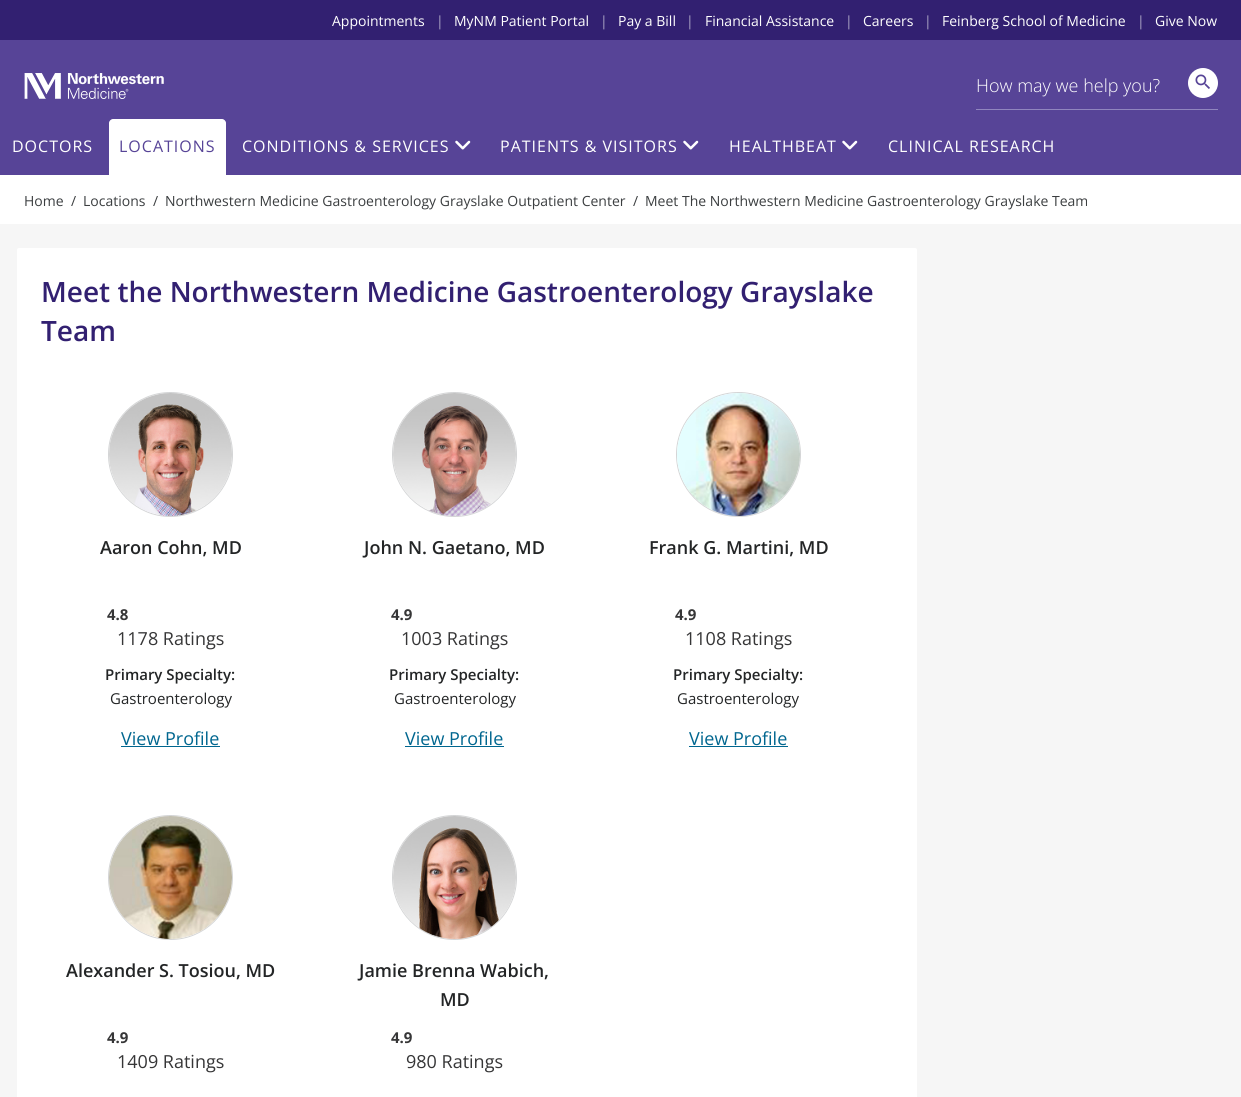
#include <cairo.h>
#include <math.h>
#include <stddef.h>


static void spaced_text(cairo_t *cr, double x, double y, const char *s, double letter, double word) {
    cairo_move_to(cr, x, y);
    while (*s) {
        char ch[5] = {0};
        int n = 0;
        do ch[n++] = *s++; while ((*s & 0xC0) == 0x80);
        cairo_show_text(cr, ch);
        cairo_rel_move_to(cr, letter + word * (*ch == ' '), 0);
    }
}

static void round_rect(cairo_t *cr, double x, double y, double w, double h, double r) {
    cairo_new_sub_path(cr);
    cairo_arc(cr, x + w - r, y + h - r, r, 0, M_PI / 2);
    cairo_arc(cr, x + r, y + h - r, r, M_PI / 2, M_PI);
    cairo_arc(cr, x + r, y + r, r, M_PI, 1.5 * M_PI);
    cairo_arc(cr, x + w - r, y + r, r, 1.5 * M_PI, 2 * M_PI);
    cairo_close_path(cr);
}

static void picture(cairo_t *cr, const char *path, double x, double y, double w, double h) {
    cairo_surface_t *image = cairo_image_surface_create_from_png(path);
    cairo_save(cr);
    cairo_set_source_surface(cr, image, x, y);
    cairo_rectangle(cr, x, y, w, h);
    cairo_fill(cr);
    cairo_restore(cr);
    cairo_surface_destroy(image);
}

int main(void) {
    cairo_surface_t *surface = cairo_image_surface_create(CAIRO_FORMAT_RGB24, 1241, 1097);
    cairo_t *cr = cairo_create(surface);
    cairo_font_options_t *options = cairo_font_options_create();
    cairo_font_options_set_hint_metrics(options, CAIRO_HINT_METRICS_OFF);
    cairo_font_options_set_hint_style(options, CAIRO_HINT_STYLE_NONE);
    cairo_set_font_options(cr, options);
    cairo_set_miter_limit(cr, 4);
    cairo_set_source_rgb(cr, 0.961, 0.961, 0.961);
    cairo_paint(cr);
    cairo_set_source_rgb(cr, 0.341, 0.267, 0.592);
    cairo_rectangle(cr, 0, 40, 1241, 135);
    cairo_fill(cr);
    cairo_set_source_rgb(cr, 0.196, 0.125, 0.443);
    cairo_rectangle(cr, 0, 0, 1241, 40);
    cairo_fill(cr);
    cairo_select_font_face(cr, "Open Sans", CAIRO_FONT_SLANT_NORMAL, CAIRO_FONT_WEIGHT_NORMAL);
    cairo_set_font_size(cr, 14);
    cairo_set_source_rgb(cr, 1, 1, 1);
    cairo_move_to(cr, 332, 26);
    cairo_show_text(cr, "Appointments");
    cairo_set_source_rgb(cr, 0.678, 0.651, 0.776);
    cairo_move_to(cr, 436, 26);
    cairo_show_text(cr, "|");
    cairo_set_source_rgb(cr, 1, 1, 1);
    cairo_move_to(cr, 454, 26);
    cairo_show_text(cr, "MyNM Patient Portal");
    cairo_set_source_rgb(cr, 0.678, 0.651, 0.776);
    cairo_move_to(cr, 600, 26);
    cairo_show_text(cr, "|");
    cairo_set_source_rgb(cr, 1, 1, 1);
    cairo_move_to(cr, 618, 26);
    cairo_show_text(cr, "Pay a Bill");
    cairo_set_source_rgb(cr, 0.678, 0.651, 0.776);
    cairo_move_to(cr, 686, 26);
    cairo_show_text(cr, "|");
    cairo_set_source_rgb(cr, 1, 1, 1);
    cairo_move_to(cr, 705, 26);
    cairo_show_text(cr, "Financial Assistance");
    cairo_set_source_rgb(cr, 0.678, 0.651, 0.776);
    cairo_move_to(cr, 845, 26);
    cairo_show_text(cr, "|");
    cairo_set_source_rgb(cr, 1, 1, 1);
    cairo_move_to(cr, 863, 26);
    cairo_show_text(cr, "Careers");
    cairo_set_source_rgb(cr, 0.678, 0.651, 0.776);
    cairo_move_to(cr, 924, 26);
    cairo_show_text(cr, "|");
    cairo_set_source_rgb(cr, 1, 1, 1);
    cairo_move_to(cr, 942, 26);
    cairo_show_text(cr, "Feinberg School of Medicine");
    cairo_set_source_rgb(cr, 0.678, 0.651, 0.776);
    cairo_move_to(cr, 1137, 26);
    cairo_show_text(cr, "|");
    cairo_set_source_rgb(cr, 1, 1, 1);
    cairo_move_to(cr, 1155, 26);
    cairo_show_text(cr, "Give Now");
    picture(cr, "img1.png", 24, 73, 140, 26);
    cairo_set_source_rgb(cr, 0.565, 0.525, 0.745);
    cairo_rectangle(cr, 976, 109, 242, 1);
    cairo_fill(cr);
    cairo_select_font_face(cr, "Open Sans Light", CAIRO_FONT_SLANT_NORMAL, CAIRO_FONT_WEIGHT_NORMAL);
    cairo_set_font_size(cr, 18);
    cairo_set_source_rgb(cr, 1, 1, 1);
    cairo_move_to(cr, 976, 92);
    cairo_show_text(cr, "How may we help you?");
    cairo_new_path(cr);
    cairo_arc(cr, 1203, 83, 15, 0, 2 * M_PI);
    cairo_fill(cr);
    picture(cr, "img2.png", 1195, 74, 15, 15);
    cairo_select_font_face(cr, "Open Sans", CAIRO_FONT_SLANT_NORMAL, CAIRO_FONT_WEIGHT_NORMAL);
    cairo_set_font_size(cr, 16);
    spaced_text(cr, 12, 152, "DOCTORS", 1, 0);
    cairo_new_path(cr);
    cairo_move_to(cr, 113, 119);
    cairo_line_to(cr, 222, 119);
    cairo_curve_to(cr, 224, 119, 226, 121, 226, 123);
    cairo_line_to(cr, 226, 175);
    cairo_line_to(cr, 109, 175);
    cairo_line_to(cr, 109, 123);
    cairo_curve_to(cr, 109, 121, 111, 119, 113, 119);
    cairo_close_path(cr);
    cairo_fill(cr);
    cairo_set_source_rgb(cr, 0.341, 0.267, 0.592);
    spaced_text(cr, 119, 152, "LOCATIONS", 1, 0);
    cairo_set_source_rgb(cr, 1, 1, 1);
    spaced_text(cr, 242, 152, "CONDITIONS & SERVICES", 1, 0);
    picture(cr, "img3.png", 455, 140, 16, 10);
    spaced_text(cr, 500, 152, "PATIENTS & VISITORS", 1, 0);
    picture(cr, "img3.png", 683, 140, 16, 10);
    spaced_text(cr, 729, 152, "HEALTHBEAT", 1, 0);
    picture(cr, "img3.png", 842, 140, 16, 10);
    spaced_text(cr, 888, 152, "CLINICAL RESEARCH", 1, 0);
    cairo_rectangle(cr, 0, 175, 1241, 49);
    cairo_fill(cr);
    cairo_set_font_size(cr, 14);
    cairo_set_source_rgb(cr, 0.231, 0.243, 0.251);
    cairo_move_to(cr, 24, 206);
    cairo_show_text(cr, "Home");
    cairo_move_to(cr, 71, 206);
    cairo_show_text(cr, "/");
    cairo_move_to(cr, 83, 206);
    cairo_show_text(cr, "Locations");
    cairo_move_to(cr, 153, 206);
    cairo_show_text(cr, "/");
    cairo_move_to(cr, 165, 206);
    cairo_show_text(cr, "Northwestern Medicine Gastroenterology Grayslake Outpatient Center");
    cairo_move_to(cr, 633, 206);
    cairo_show_text(cr, "/");
    cairo_move_to(cr, 645, 206);
    cairo_show_text(cr, "Meet The Northwestern Medicine Gastroenterology Grayslake Team");
    cairo_set_source_rgb(cr, 1, 1, 1);
    round_rect(cr, 17, 248, 900, 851, 2);
    cairo_fill(cr);
    cairo_select_font_face(cr, "Open Sans SemiBold", CAIRO_FONT_SLANT_NORMAL, CAIRO_FONT_WEIGHT_NORMAL);
    cairo_set_font_size(cr, 28);
    cairo_set_source_rgb(cr, 0.196, 0.125, 0.443);
    cairo_move_to(cr, 41, 302);
    cairo_show_text(cr, "Meet the Northwestern Medicine Gastroenterology Grayslake");
    cairo_move_to(cr, 41, 341);
    cairo_show_text(cr, "Team");
    cairo_new_path(cr);
    cairo_arc(cr, 170.5, 454.5, 62, 0, 2 * M_PI);
    cairo_set_source_rgb(cr, 0.831, 0.835, 0.839);
    cairo_set_line_width(cr, 1);
    cairo_stroke(cr);
    picture(cr, "img4.png", 109, 393, 123, 123);
    cairo_set_font_size(cr, 18);
    cairo_set_source_rgb(cr, 0.137, 0.145, 0.149);
    cairo_move_to(cr, 100, 554);
    cairo_show_text(cr, "Aaron Cohn, MD");
    cairo_select_font_face(cr, "Open Sans", CAIRO_FONT_SLANT_NORMAL, CAIRO_FONT_WEIGHT_BOLD);
    cairo_set_font_size(cr, 15);
    cairo_set_source_rgb(cr, 0.212, 0.212, 0.216);
    cairo_move_to(cr, 107, 620);
    cairo_show_text(cr, "4.8");
    cairo_select_font_face(cr, "Open Sans", CAIRO_FONT_SLANT_NORMAL, CAIRO_FONT_WEIGHT_NORMAL);
    cairo_set_font_size(cr, 18);
    cairo_move_to(cr, 117, 645);
    cairo_show_text(cr, "1178 Ratings");
    cairo_select_font_face(cr, "Open Sans SemiBold", CAIRO_FONT_SLANT_NORMAL, CAIRO_FONT_WEIGHT_NORMAL);
    cairo_set_font_size(cr, 15);
    cairo_set_source_rgb(cr, 0.137, 0.145, 0.149);
    cairo_move_to(cr, 105, 680);
    cairo_show_text(cr, "Primary Specialty:");
    cairo_select_font_face(cr, "Open Sans", CAIRO_FONT_SLANT_NORMAL, CAIRO_FONT_WEIGHT_NORMAL);
    cairo_move_to(cr, 110, 704);
    cairo_show_text(cr, "Gastroenterology");
    cairo_set_font_size(cr, 18);
    cairo_set_source_rgb(cr, 0, 0.4, 0.561);
    cairo_move_to(cr, 121, 745);
    cairo_show_text(cr, "View Profile");
    cairo_rectangle(cr, 121, 746, 99, 1);
    cairo_fill(cr);
    cairo_arc(cr, 454.5, 454.5, 62, 0, 2 * M_PI);
    cairo_set_source_rgb(cr, 0.831, 0.835, 0.839);
    cairo_stroke(cr);
    picture(cr, "img5.png", 393, 393, 123, 123);
    cairo_select_font_face(cr, "Open Sans SemiBold", CAIRO_FONT_SLANT_NORMAL, CAIRO_FONT_WEIGHT_NORMAL);
    cairo_set_source_rgb(cr, 0.137, 0.145, 0.149);
    cairo_move_to(cr, 364, 554);
    cairo_show_text(cr, "John N. Gaetano, MD");
    cairo_select_font_face(cr, "Open Sans", CAIRO_FONT_SLANT_NORMAL, CAIRO_FONT_WEIGHT_BOLD);
    cairo_set_font_size(cr, 15);
    cairo_set_source_rgb(cr, 0.212, 0.212, 0.216);
    cairo_move_to(cr, 391, 620);
    cairo_show_text(cr, "4.9");
    cairo_select_font_face(cr, "Open Sans", CAIRO_FONT_SLANT_NORMAL, CAIRO_FONT_WEIGHT_NORMAL);
    cairo_set_font_size(cr, 18);
    cairo_move_to(cr, 401, 645);
    cairo_show_text(cr, "1003 Ratings");
    cairo_select_font_face(cr, "Open Sans SemiBold", CAIRO_FONT_SLANT_NORMAL, CAIRO_FONT_WEIGHT_NORMAL);
    cairo_set_font_size(cr, 15);
    cairo_set_source_rgb(cr, 0.137, 0.145, 0.149);
    cairo_move_to(cr, 389, 680);
    cairo_show_text(cr, "Primary Specialty:");
    cairo_select_font_face(cr, "Open Sans", CAIRO_FONT_SLANT_NORMAL, CAIRO_FONT_WEIGHT_NORMAL);
    cairo_move_to(cr, 394, 704);
    cairo_show_text(cr, "Gastroenterology");
    cairo_set_font_size(cr, 18);
    cairo_set_source_rgb(cr, 0, 0.4, 0.561);
    cairo_move_to(cr, 405, 745);
    cairo_show_text(cr, "View Profile");
    cairo_rectangle(cr, 405, 746, 99, 1);
    cairo_fill(cr);
    cairo_arc(cr, 738.5, 454.5, 62, 0, 2 * M_PI);
    cairo_set_source_rgb(cr, 0.831, 0.835, 0.839);
    cairo_stroke(cr);
    picture(cr, "img6.png", 677, 393, 123, 123);
    cairo_select_font_face(cr, "Open Sans SemiBold", CAIRO_FONT_SLANT_NORMAL, CAIRO_FONT_WEIGHT_NORMAL);
    cairo_set_source_rgb(cr, 0.137, 0.145, 0.149);
    cairo_move_to(cr, 649, 554);
    cairo_show_text(cr, "Frank G. Martini, MD");
    cairo_select_font_face(cr, "Open Sans", CAIRO_FONT_SLANT_NORMAL, CAIRO_FONT_WEIGHT_BOLD);
    cairo_set_font_size(cr, 15);
    cairo_set_source_rgb(cr, 0.212, 0.212, 0.216);
    cairo_move_to(cr, 675, 620);
    cairo_show_text(cr, "4.9");
    cairo_select_font_face(cr, "Open Sans", CAIRO_FONT_SLANT_NORMAL, CAIRO_FONT_WEIGHT_NORMAL);
    cairo_set_font_size(cr, 18);
    cairo_move_to(cr, 685, 645);
    cairo_show_text(cr, "1108 Ratings");
    cairo_select_font_face(cr, "Open Sans SemiBold", CAIRO_FONT_SLANT_NORMAL, CAIRO_FONT_WEIGHT_NORMAL);
    cairo_set_font_size(cr, 15);
    cairo_set_source_rgb(cr, 0.137, 0.145, 0.149);
    cairo_move_to(cr, 673, 680);
    cairo_show_text(cr, "Primary Specialty:");
    cairo_select_font_face(cr, "Open Sans", CAIRO_FONT_SLANT_NORMAL, CAIRO_FONT_WEIGHT_NORMAL);
    cairo_move_to(cr, 677, 704);
    cairo_show_text(cr, "Gastroenterology");
    cairo_set_font_size(cr, 18);
    cairo_set_source_rgb(cr, 0, 0.4, 0.561);
    cairo_move_to(cr, 689, 745);
    cairo_show_text(cr, "View Profile");
    cairo_rectangle(cr, 689, 746, 99, 1);
    cairo_fill(cr);
    cairo_arc(cr, 170.5, 877.5, 62, 0, 2 * M_PI);
    cairo_set_source_rgb(cr, 0.831, 0.835, 0.839);
    cairo_stroke(cr);
    picture(cr, "img7.png", 109, 816, 123, 123);
    cairo_select_font_face(cr, "Open Sans SemiBold", CAIRO_FONT_SLANT_NORMAL, CAIRO_FONT_WEIGHT_NORMAL);
    cairo_set_source_rgb(cr, 0.137, 0.145, 0.149);
    cairo_move_to(cr, 66, 977);
    cairo_show_text(cr, "Alexander S. Tosiou, MD");
    cairo_select_font_face(cr, "Open Sans", CAIRO_FONT_SLANT_NORMAL, CAIRO_FONT_WEIGHT_BOLD);
    cairo_set_font_size(cr, 15);
    cairo_set_source_rgb(cr, 0.212, 0.212, 0.216);
    cairo_move_to(cr, 107, 1043);
    cairo_show_text(cr, "4.9");
    cairo_select_font_face(cr, "Open Sans", CAIRO_FONT_SLANT_NORMAL, CAIRO_FONT_WEIGHT_NORMAL);
    cairo_set_font_size(cr, 18);
    cairo_move_to(cr, 117, 1068);
    cairo_show_text(cr, "1409 Ratings");
    cairo_new_path(cr);
    cairo_arc(cr, 454.5, 877.5, 62, 0, 2 * M_PI);
    cairo_set_source_rgb(cr, 0.831, 0.835, 0.839);
    cairo_stroke(cr);
    picture(cr, "img8.png", 393, 816, 123, 123);
    cairo_select_font_face(cr, "Open Sans SemiBold", CAIRO_FONT_SLANT_NORMAL, CAIRO_FONT_WEIGHT_NORMAL);
    cairo_set_source_rgb(cr, 0.137, 0.145, 0.149);
    cairo_move_to(cr, 359, 977);
    cairo_show_text(cr, "Jamie Brenna Wabich,");
    cairo_move_to(cr, 440, 1006);
    cairo_show_text(cr, "MD");
    cairo_select_font_face(cr, "Open Sans", CAIRO_FONT_SLANT_NORMAL, CAIRO_FONT_WEIGHT_BOLD);
    cairo_set_font_size(cr, 15);
    cairo_set_source_rgb(cr, 0.212, 0.212, 0.216);
    cairo_move_to(cr, 391, 1043);
    cairo_show_text(cr, "4.9");
    cairo_select_font_face(cr, "Open Sans", CAIRO_FONT_SLANT_NORMAL, CAIRO_FONT_WEIGHT_NORMAL);
    cairo_set_font_size(cr, 18);
    cairo_move_to(cr, 406, 1068);
    cairo_show_text(cr, "980 Ratings");
    cairo_surface_write_to_png(surface, "page.png");
    cairo_font_options_destroy(options);
    cairo_destroy(cr);
    cairo_surface_destroy(surface);
    return 0;
}
